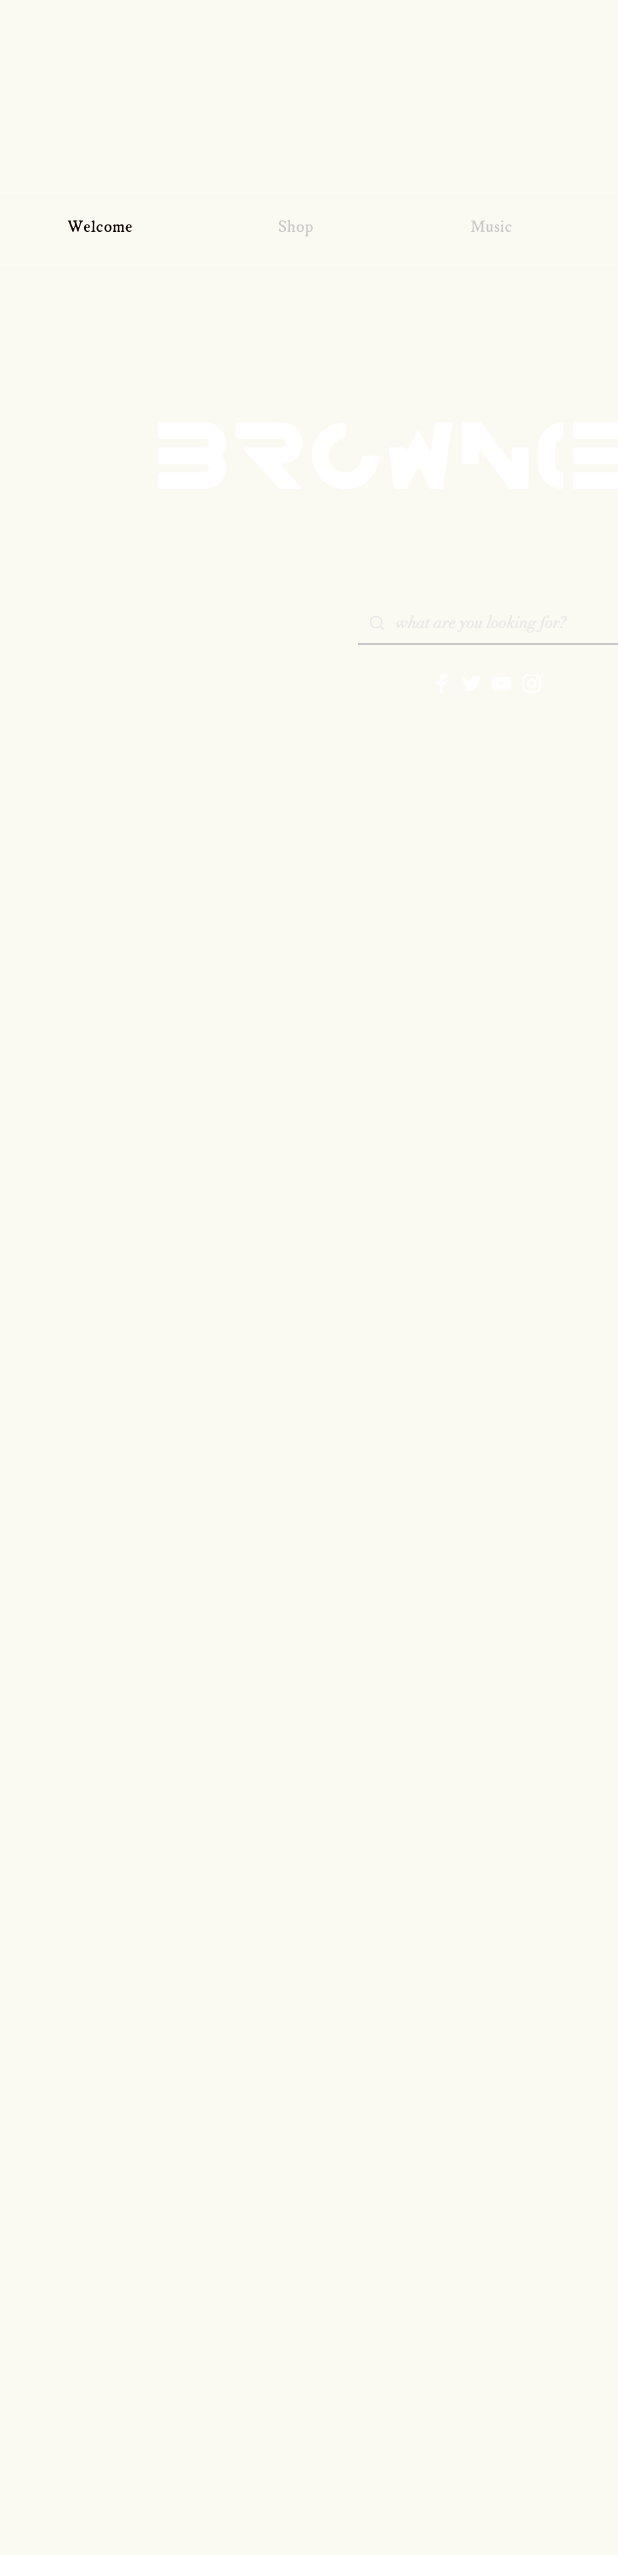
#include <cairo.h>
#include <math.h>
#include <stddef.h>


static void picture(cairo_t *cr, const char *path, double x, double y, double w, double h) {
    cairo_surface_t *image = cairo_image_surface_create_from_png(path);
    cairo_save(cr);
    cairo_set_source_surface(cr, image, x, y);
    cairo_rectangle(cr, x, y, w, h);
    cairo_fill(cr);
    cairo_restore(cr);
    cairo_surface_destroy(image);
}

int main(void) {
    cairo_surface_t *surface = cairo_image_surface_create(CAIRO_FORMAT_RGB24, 618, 2555);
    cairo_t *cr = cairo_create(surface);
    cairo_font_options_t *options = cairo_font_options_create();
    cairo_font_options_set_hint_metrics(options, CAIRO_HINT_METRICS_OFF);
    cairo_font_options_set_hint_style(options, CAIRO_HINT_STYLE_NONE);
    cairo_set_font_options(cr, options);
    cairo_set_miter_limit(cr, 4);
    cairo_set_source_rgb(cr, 0.98, 0.973, 0.949);
    cairo_paint(cr);
    cairo_set_source_rgb(cr, 0.988, 0.984, 0.969);
    cairo_rectangle(cr, 2, 192, 616, 1);
    cairo_fill(cr);
    cairo_rectangle(cr, 2, 264, 616, 1);
    cairo_fill(cr);
    cairo_select_font_face(cr, "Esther", CAIRO_FONT_SLANT_NORMAL, CAIRO_FONT_WEIGHT_NORMAL);
    cairo_set_font_size(cr, 18);
    cairo_set_source_rgb(cr, 0.071, 0.035, 0.035);
    cairo_move_to(cr, 68, 232);
    cairo_show_text(cr, "Welcome");
    cairo_set_source_rgb(cr, 0.78, 0.78, 0.78);
    cairo_move_to(cr, 278, 232);
    cairo_show_text(cr, "Shop");
    cairo_move_to(cr, 471, 232);
    cairo_show_text(cr, "Music");
    picture(cr, "img1.png", 158, 422, 460, 67);
    cairo_rectangle(cr, 358, 643, 260, 2);
    cairo_fill(cr);
    picture(cr, "img2.png", 370, 616, 14, 14);
    cairo_select_font_face(cr, "didot", CAIRO_FONT_SLANT_NORMAL, CAIRO_FONT_WEIGHT_BOLD);
    cairo_set_font_size(cr, 16);
    cairo_set_source_rgb(cr, 0.91, 0.902, 0.902);
    cairo_move_to(cr, 396, 628);
    cairo_show_text(cr, "what are you looking for?");
    picture(cr, "img3.png", 436, 674, 11, 19);
    picture(cr, "img4.png", 463, 676, 17, 15);
    picture(cr, "img5.png", 491, 676, 21, 15);
    picture(cr, "img6.png", 522, 674, 19, 19);
    cairo_surface_write_to_png(surface, "page.png");
    cairo_font_options_destroy(options);
    cairo_destroy(cr);
    cairo_surface_destroy(surface);
    return 0;
}
